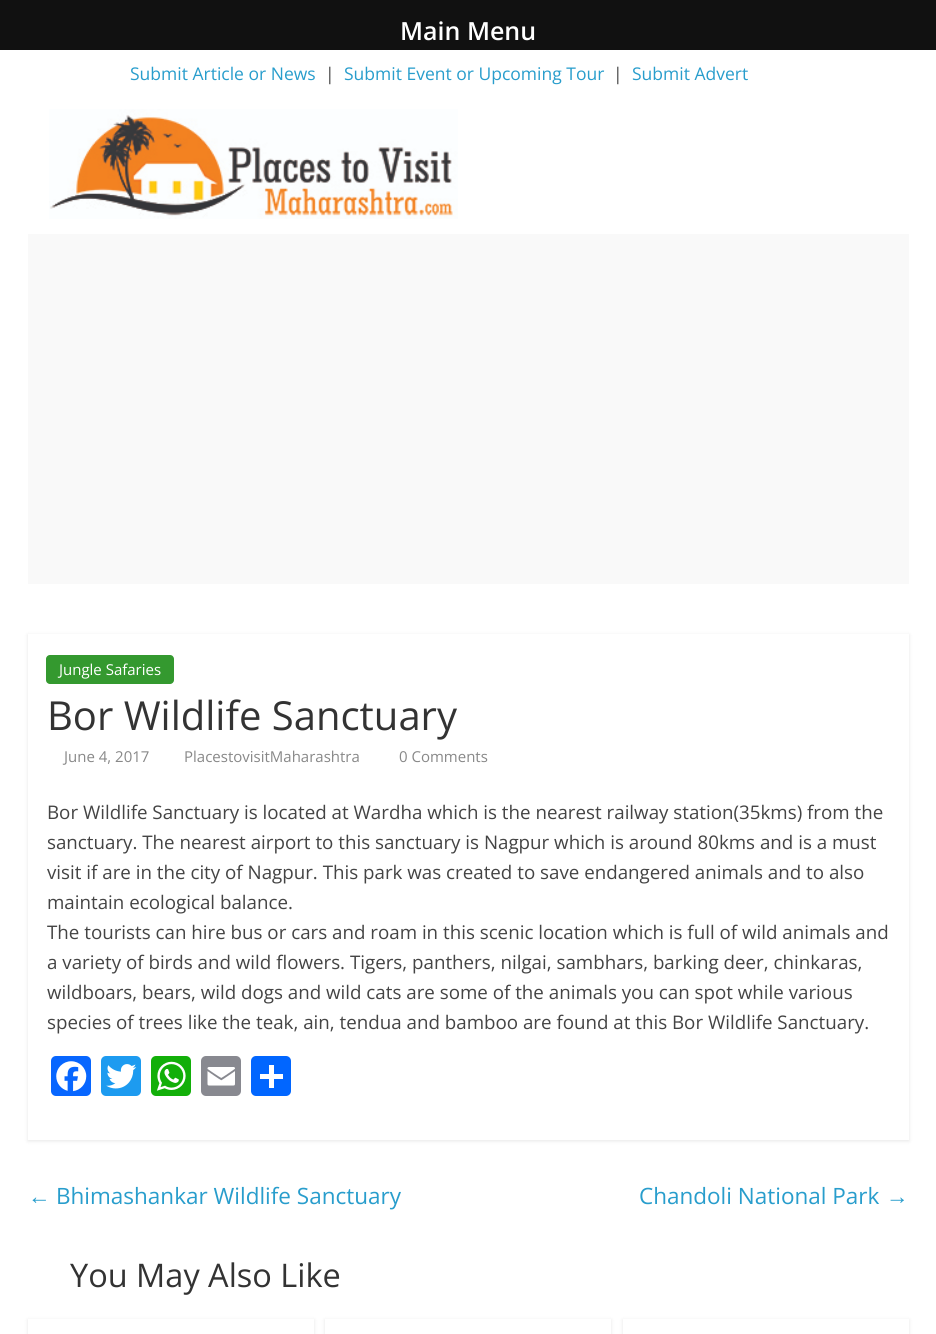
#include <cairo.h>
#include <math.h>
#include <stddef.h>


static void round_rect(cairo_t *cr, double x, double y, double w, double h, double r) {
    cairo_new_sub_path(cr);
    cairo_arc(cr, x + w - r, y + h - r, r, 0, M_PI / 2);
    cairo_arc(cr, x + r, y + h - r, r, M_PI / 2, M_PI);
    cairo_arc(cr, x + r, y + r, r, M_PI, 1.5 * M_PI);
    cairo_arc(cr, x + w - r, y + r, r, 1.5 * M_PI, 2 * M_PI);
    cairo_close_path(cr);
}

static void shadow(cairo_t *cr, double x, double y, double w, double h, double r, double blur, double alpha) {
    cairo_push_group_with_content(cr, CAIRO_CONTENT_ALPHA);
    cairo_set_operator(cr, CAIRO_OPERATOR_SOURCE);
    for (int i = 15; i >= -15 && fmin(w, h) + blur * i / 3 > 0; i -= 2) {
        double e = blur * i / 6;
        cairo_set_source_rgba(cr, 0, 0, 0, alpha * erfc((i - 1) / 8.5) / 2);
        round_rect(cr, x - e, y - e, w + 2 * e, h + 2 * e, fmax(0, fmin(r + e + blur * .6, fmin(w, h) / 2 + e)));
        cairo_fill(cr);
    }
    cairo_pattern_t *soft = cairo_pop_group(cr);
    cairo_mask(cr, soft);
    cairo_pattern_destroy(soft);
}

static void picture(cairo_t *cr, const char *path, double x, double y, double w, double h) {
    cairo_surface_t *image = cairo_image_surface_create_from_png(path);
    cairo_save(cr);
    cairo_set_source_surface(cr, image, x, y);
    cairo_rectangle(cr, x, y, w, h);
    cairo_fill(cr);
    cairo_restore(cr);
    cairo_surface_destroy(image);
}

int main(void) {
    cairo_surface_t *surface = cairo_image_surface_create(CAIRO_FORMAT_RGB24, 936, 1334);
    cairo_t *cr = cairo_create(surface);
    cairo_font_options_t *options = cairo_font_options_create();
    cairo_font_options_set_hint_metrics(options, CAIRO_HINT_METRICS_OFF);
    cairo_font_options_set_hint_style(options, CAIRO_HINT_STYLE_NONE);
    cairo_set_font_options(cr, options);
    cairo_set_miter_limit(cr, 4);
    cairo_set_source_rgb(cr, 1, 1, 1);
    cairo_paint(cr);
    cairo_set_source_rgb(cr, 0.067, 0.067, 0.067);
    cairo_rectangle(cr, 0, 0, 936, 50);
    cairo_fill(cr);
    cairo_select_font_face(cr, "Open Sans SemiBold", CAIRO_FONT_SLANT_NORMAL, CAIRO_FONT_WEIGHT_NORMAL);
    cairo_set_font_size(cr, 25);
    cairo_set_source_rgb(cr, 1, 1, 1);
    cairo_move_to(cr, 400, 40);
    cairo_show_text(cr, "Main Menu");
    cairo_select_font_face(cr, "Open Sans", CAIRO_FONT_SLANT_NORMAL, CAIRO_FONT_WEIGHT_NORMAL);
    cairo_set_font_size(cr, 17.5);
    cairo_set_source_rgb(cr, 0.157, 0.616, 0.8);
    cairo_move_to(cr, 130, 80);
    cairo_show_text(cr, "Submit Article or News");
    cairo_set_source_rgb(cr, 0.267, 0.267, 0.267);
    cairo_move_to(cr, 325, 80);
    cairo_show_text(cr, "|");
    cairo_set_source_rgb(cr, 0.157, 0.616, 0.8);
    cairo_move_to(cr, 344, 80);
    cairo_show_text(cr, "Submit Event or Upcoming Tour");
    cairo_set_source_rgb(cr, 0.267, 0.267, 0.267);
    cairo_move_to(cr, 613, 80);
    cairo_show_text(cr, "|");
    cairo_set_source_rgb(cr, 0.157, 0.616, 0.8);
    cairo_move_to(cr, 632, 80);
    cairo_show_text(cr, "Submit Advert");
    picture(cr, "img1.png", 49, 109, 409, 110);
    cairo_set_source_rgb(cr, 0.973, 0.973, 0.973);
    cairo_rectangle(cr, 28, 234, 881, 350);
    cairo_fill(cr);
    cairo_save(cr);
    cairo_set_fill_rule(cr, CAIRO_FILL_RULE_EVEN_ODD);
    cairo_new_path(cr);
    cairo_move_to(cr, 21, 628);
    cairo_line_to(cr, 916, 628);
    cairo_line_to(cr, 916, 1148);
    cairo_line_to(cr, 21, 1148);
    cairo_close_path(cr);
    cairo_move_to(cr, 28, 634);
    cairo_line_to(cr, 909, 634);
    cairo_line_to(cr, 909, 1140);
    cairo_line_to(cr, 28, 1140);
    cairo_close_path(cr);
    cairo_clip(cr);
    cairo_set_source_rgb(cr, 0, 0, 0);
    shadow(cr, 28, 635, 881, 506, 0, 2, 0.1);
    cairo_restore(cr);
    cairo_set_source_rgb(cr, 0.204, 0.6, 0.184);
    round_rect(cr, 46, 655, 128, 29, 4);
    cairo_fill(cr);
    cairo_set_font_size(cr, 15);
    cairo_set_source_rgb(cr, 1, 1, 1);
    cairo_move_to(cr, 59, 675);
    cairo_show_text(cr, "Jungle Safaries");
    cairo_set_font_size(cr, 40);
    cairo_set_source_rgb(cr, 0.2, 0.2, 0.2);
    cairo_move_to(cr, 47, 730);
    cairo_show_text(cr, "Bor Wildlife Sanctuary");
    cairo_set_font_size(cr, 15);
    cairo_set_source_rgb(cr, 0.533, 0.533, 0.533);
    cairo_move_to(cr, 64, 762);
    cairo_show_text(cr, "June 4, 2017");
    cairo_move_to(cr, 184, 762);
    cairo_show_text(cr, "PlacestovisitMaharashtra");
    cairo_move_to(cr, 399, 762);
    cairo_show_text(cr, "0 Comments");
    cairo_set_font_size(cr, 18.75);
    cairo_set_source_rgb(cr, 0.267, 0.267, 0.267);
    cairo_move_to(cr, 47, 819);
    cairo_show_text(cr, "Bor Wildlife Sanctuary is located at Wardha which is the nearest railway station(35kms) from the");
    cairo_move_to(cr, 47, 849);
    cairo_show_text(cr, "sanctuary. The nearest airport to this sanctuary is Nagpur which is around 80kms and is a must");
    cairo_move_to(cr, 47, 879);
    cairo_show_text(cr, "visit if are in the city of Nagpur. This park was created to save endangered animals and to also");
    cairo_move_to(cr, 47, 909);
    cairo_show_text(cr, "maintain ecological balance.");
    cairo_move_to(cr, 47, 939);
    cairo_show_text(cr, "The tourists can hire bus or cars and roam in this scenic location which is full of wild animals and");
    cairo_move_to(cr, 47, 969);
    cairo_show_text(cr, "a variety of birds and wild flowers. Tigers, panthers, nilgai, sambhars, barking deer, chinkaras,");
    cairo_move_to(cr, 47, 999);
    cairo_show_text(cr, "wildboars, bears, wild dogs and wild cats are some of the animals you can spot while various");
    cairo_move_to(cr, 47, 1029);
    cairo_show_text(cr, "species of trees like the teak, ain, tendua and bamboo are found at this Bor Wildlife Sanctuary.");
    cairo_set_source_rgb(cr, 0.031, 0.4, 1);
    round_rect(cr, 51, 1056, 40, 40, 5);
    cairo_fill(cr);
    picture(cr, "img2.png", 56, 1061, 31, 31);
    cairo_set_source_rgb(cr, 0.114, 0.608, 0.941);
    round_rect(cr, 101, 1056, 40, 40, 5);
    cairo_fill(cr);
    picture(cr, "img3.png", 106, 1064, 31, 25);
    cairo_set_source_rgb(cr, 0.071, 0.686, 0.039);
    round_rect(cr, 151, 1056, 40, 40, 5);
    cairo_fill(cr);
    picture(cr, "img4.png", 156, 1061, 30, 30);
    cairo_set_source_rgb(cr, 0.533, 0.537, 0.565);
    round_rect(cr, 201, 1056, 40, 40, 5);
    cairo_fill(cr);
    picture(cr, "img5.png", 207, 1067, 28, 19);
    cairo_set_source_rgb(cr, 0.004, 0.4, 1);
    round_rect(cr, 251, 1056, 40, 40, 5);
    cairo_fill(cr);
    cairo_set_source_rgb(cr, 1, 1, 1);
    cairo_rectangle(cr, 269, 1065, 5, 23);
    cairo_fill(cr);
    cairo_rectangle(cr, 260, 1074, 23, 5);
    cairo_fill(cr);
    cairo_select_font_face(cr, "Liberation Serif", CAIRO_FONT_SLANT_NORMAL, CAIRO_FONT_WEIGHT_NORMAL);
    cairo_set_font_size(cr, 22.5);
    cairo_set_source_rgb(cr, 0.157, 0.616, 0.8);
    cairo_move_to(cr, 28, 1204);
    cairo_show_text(cr, "←");
    cairo_select_font_face(cr, "Open Sans", CAIRO_FONT_SLANT_NORMAL, CAIRO_FONT_WEIGHT_NORMAL);
    cairo_move_to(cr, 56, 1204);
    cairo_show_text(cr, "Bhimashankar Wildlife Sanctuary");
    cairo_move_to(cr, 639, 1204);
    cairo_show_text(cr, "Chandoli National Park");
    cairo_select_font_face(cr, "Liberation Serif", CAIRO_FONT_SLANT_NORMAL, CAIRO_FONT_WEIGHT_NORMAL);
    cairo_move_to(cr, 886, 1204);
    cairo_show_text(cr, "→");
    cairo_select_font_face(cr, "Open Sans", CAIRO_FONT_SLANT_NORMAL, CAIRO_FONT_WEIGHT_NORMAL);
    cairo_set_font_size(cr, 32.5);
    cairo_set_source_rgb(cr, 0.2, 0.2, 0.2);
    cairo_move_to(cr, 70, 1287);
    cairo_show_text(cr, "You May Also Like");
    cairo_save(cr);
    cairo_set_fill_rule(cr, CAIRO_FILL_RULE_EVEN_ODD);
    cairo_new_path(cr);
    cairo_move_to(cr, 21, 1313);
    cairo_line_to(cr, 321, 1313);
    cairo_line_to(cr, 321, 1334);
    cairo_line_to(cr, 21, 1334);
    cairo_close_path(cr);
    cairo_move_to(cr, 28, 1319);
    cairo_line_to(cr, 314, 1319);
    cairo_line_to(cr, 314, 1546);
    cairo_line_to(cr, 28, 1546);
    cairo_close_path(cr);
    cairo_clip(cr);
    cairo_set_source_rgb(cr, 0, 0, 0);
    shadow(cr, 28, 1320, 286, 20, 0, 2, 0.1);
    cairo_restore(cr);
    cairo_save(cr);
    cairo_set_fill_rule(cr, CAIRO_FILL_RULE_EVEN_ODD);
    cairo_new_path(cr);
    cairo_move_to(cr, 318, 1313);
    cairo_line_to(cr, 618, 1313);
    cairo_line_to(cr, 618, 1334);
    cairo_line_to(cr, 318, 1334);
    cairo_close_path(cr);
    cairo_move_to(cr, 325, 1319);
    cairo_line_to(cr, 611, 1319);
    cairo_line_to(cr, 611, 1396);
    cairo_line_to(cr, 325, 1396);
    cairo_close_path(cr);
    cairo_clip(cr);
    cairo_set_source_rgb(cr, 0, 0, 0);
    shadow(cr, 325, 1320, 286, 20, 0, 2, 0.1);
    cairo_restore(cr);
    cairo_save(cr);
    cairo_set_fill_rule(cr, CAIRO_FILL_RULE_EVEN_ODD);
    cairo_new_path(cr);
    cairo_move_to(cr, 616, 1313);
    cairo_line_to(cr, 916, 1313);
    cairo_line_to(cr, 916, 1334);
    cairo_line_to(cr, 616, 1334);
    cairo_close_path(cr);
    cairo_move_to(cr, 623, 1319);
    cairo_line_to(cr, 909, 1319);
    cairo_line_to(cr, 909, 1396);
    cairo_line_to(cr, 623, 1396);
    cairo_close_path(cr);
    cairo_clip(cr);
    cairo_set_source_rgb(cr, 0, 0, 0);
    shadow(cr, 623, 1320, 286, 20, 0, 2, 0.1);
    cairo_restore(cr);
    cairo_surface_write_to_png(surface, "page.png");
    cairo_font_options_destroy(options);
    cairo_destroy(cr);
    cairo_surface_destroy(surface);
    return 0;
}
